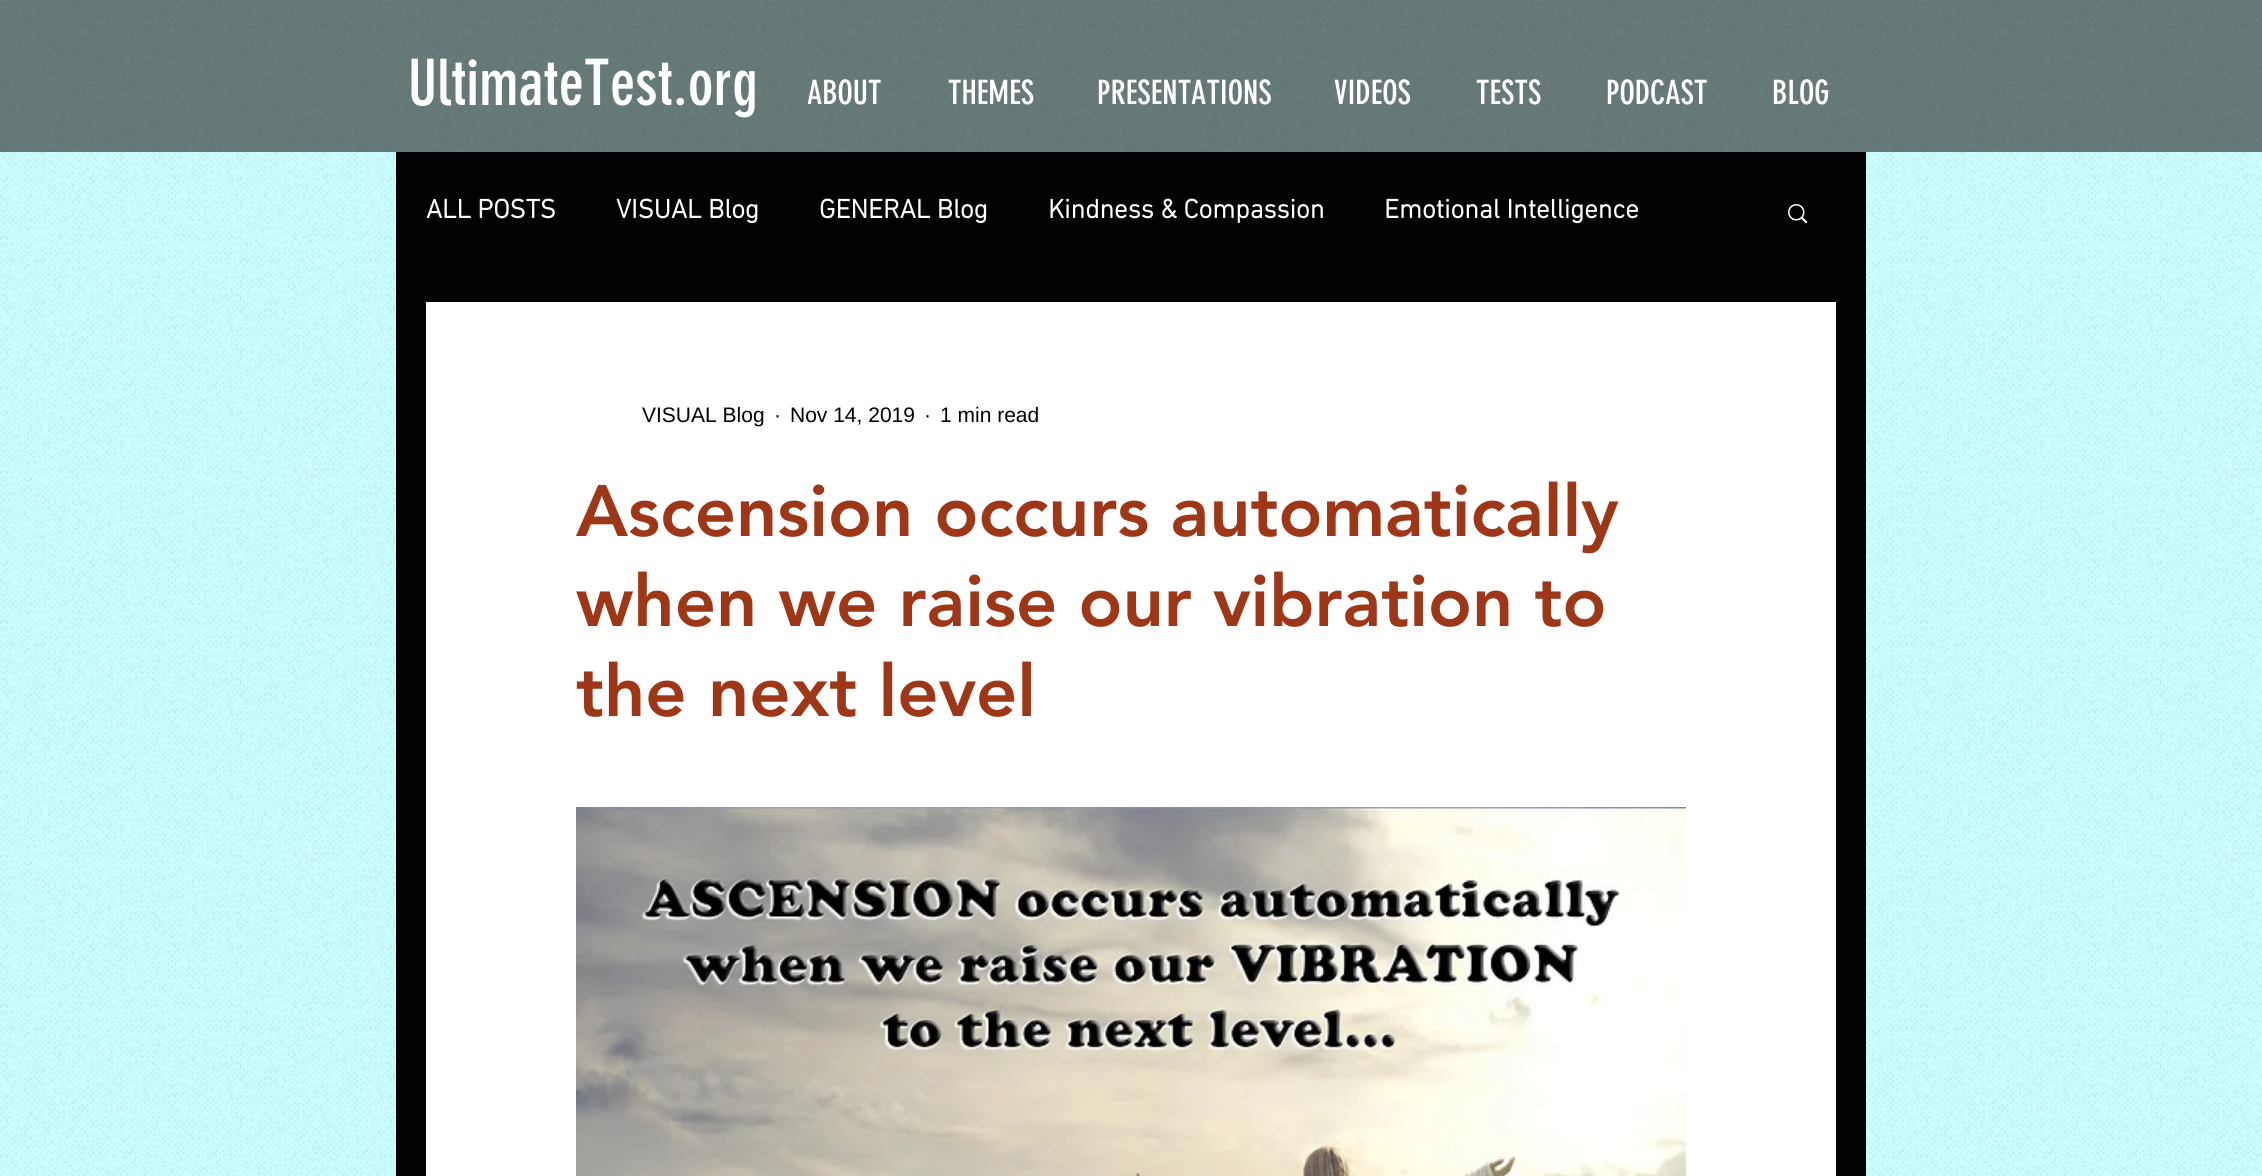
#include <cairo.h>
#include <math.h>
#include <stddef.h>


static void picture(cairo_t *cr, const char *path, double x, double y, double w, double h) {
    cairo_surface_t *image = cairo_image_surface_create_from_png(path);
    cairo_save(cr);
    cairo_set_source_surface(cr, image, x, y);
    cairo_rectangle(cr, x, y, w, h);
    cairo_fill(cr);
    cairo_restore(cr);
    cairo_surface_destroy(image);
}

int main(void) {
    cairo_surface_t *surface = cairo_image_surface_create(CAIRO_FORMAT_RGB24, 2262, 1176);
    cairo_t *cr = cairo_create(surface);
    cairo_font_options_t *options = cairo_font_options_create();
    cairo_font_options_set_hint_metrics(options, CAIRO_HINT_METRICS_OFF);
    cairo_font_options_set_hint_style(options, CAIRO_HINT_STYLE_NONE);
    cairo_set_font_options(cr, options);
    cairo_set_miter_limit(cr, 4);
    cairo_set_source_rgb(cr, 0.812, 1, 1);
    cairo_paint(cr);
    picture(cr, "img1.png", 0, 0, 2262, 1176);
    cairo_set_source_rgba(cr, 0.137, 0.137, 0.137, 0.6);
    cairo_rectangle(cr, 0, 0, 2262, 152);
    cairo_fill(cr);
    cairo_select_font_face(cr, "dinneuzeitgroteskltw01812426", CAIRO_FONT_SLANT_NORMAL, CAIRO_FONT_WEIGHT_NORMAL);
    cairo_set_font_size(cr, 63);
    cairo_set_source_rgb(cr, 1, 1, 1);
    cairo_move_to(cr, 408, 105);
    cairo_show_text(cr, "UltimateTest.org");
    cairo_set_font_size(cr, 33);
    cairo_move_to(cr, 807, 104);
    cairo_show_text(cr, "ABOUT");
    cairo_move_to(cr, 948, 104);
    cairo_show_text(cr, "THEMES");
    cairo_move_to(cr, 1097, 104);
    cairo_show_text(cr, "PRESENTATIONS");
    cairo_move_to(cr, 1334, 104);
    cairo_show_text(cr, "VIDEOS");
    cairo_move_to(cr, 1476, 104);
    cairo_show_text(cr, "TESTS");
    cairo_move_to(cr, 1606, 104);
    cairo_show_text(cr, "PODCAST");
    cairo_move_to(cr, 1772, 104);
    cairo_show_text(cr, "BLOG");
    cairo_set_source_rgb(cr, 0.008, 0.008, 0.008);
    cairo_rectangle(cr, 396, 152, 1470, 1024);
    cairo_fill(cr);
    cairo_select_font_face(cr, "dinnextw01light", CAIRO_FONT_SLANT_NORMAL, CAIRO_FONT_WEIGHT_BOLD);
    cairo_set_font_size(cr, 27);
    cairo_set_source_rgb(cr, 1, 1, 1);
    cairo_move_to(cr, 426, 218);
    cairo_show_text(cr, "ALL POSTS");
    cairo_move_to(cr, 616, 218);
    cairo_show_text(cr, "VISUAL Blog");
    cairo_move_to(cr, 819, 218);
    cairo_show_text(cr, "GENERAL Blog");
    cairo_move_to(cr, 1048, 218);
    cairo_show_text(cr, "Kindness & Compassion");
    cairo_move_to(cr, 1384, 218);
    cairo_show_text(cr, "Emotional Intelligence");
    picture(cr, "img2.png", 1788, 204, 20, 20);
    cairo_rectangle(cr, 426, 302, 1410, 874);
    cairo_fill(cr);
    cairo_select_font_face(cr, "Liberation Sans", CAIRO_FONT_SLANT_NORMAL, CAIRO_FONT_WEIGHT_NORMAL);
    cairo_set_font_size(cr, 21);
    cairo_set_source_rgb(cr, 0.008, 0.008, 0.008);
    cairo_move_to(cr, 642, 422);
    cairo_show_text(cr, "VISUAL Blog");
    cairo_move_to(cr, 774, 422);
    cairo_show_text(cr, "·");
    cairo_move_to(cr, 790, 422);
    cairo_show_text(cr, "Nov 14, 2019");
    cairo_move_to(cr, 924, 422);
    cairo_show_text(cr, "·");
    cairo_move_to(cr, 940, 422);
    cairo_show_text(cr, "1 min read");
    cairo_select_font_face(cr, "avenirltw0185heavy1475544 Black", CAIRO_FONT_SLANT_NORMAL, CAIRO_FONT_WEIGHT_NORMAL);
    cairo_set_font_size(cr, 72);
    cairo_set_source_rgb(cr, 0.62, 0.216, 0.094);
    cairo_move_to(cr, 576, 536);
    cairo_show_text(cr, "Ascension occurs automatically");
    cairo_move_to(cr, 576, 626);
    cairo_show_text(cr, "when we raise our vibration to");
    cairo_move_to(cr, 576, 716);
    cairo_show_text(cr, "the next level");
    picture(cr, "img3.png", 576, 807, 1110, 369);
    cairo_surface_write_to_png(surface, "page.png");
    cairo_font_options_destroy(options);
    cairo_destroy(cr);
    cairo_surface_destroy(surface);
    return 0;
}
